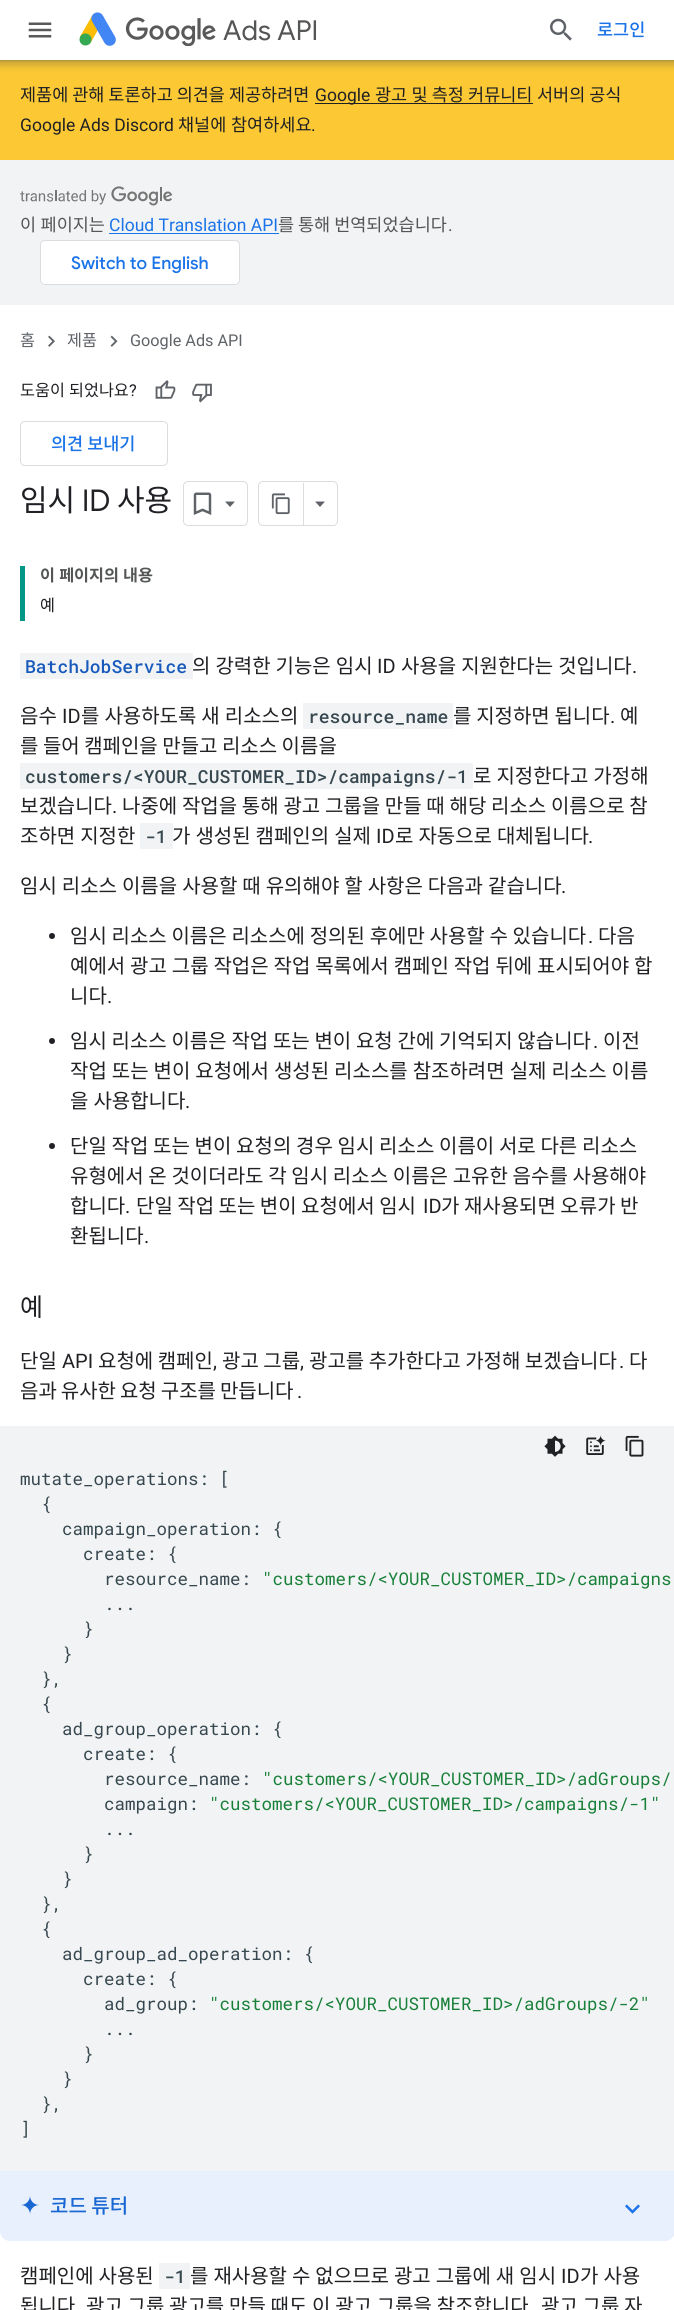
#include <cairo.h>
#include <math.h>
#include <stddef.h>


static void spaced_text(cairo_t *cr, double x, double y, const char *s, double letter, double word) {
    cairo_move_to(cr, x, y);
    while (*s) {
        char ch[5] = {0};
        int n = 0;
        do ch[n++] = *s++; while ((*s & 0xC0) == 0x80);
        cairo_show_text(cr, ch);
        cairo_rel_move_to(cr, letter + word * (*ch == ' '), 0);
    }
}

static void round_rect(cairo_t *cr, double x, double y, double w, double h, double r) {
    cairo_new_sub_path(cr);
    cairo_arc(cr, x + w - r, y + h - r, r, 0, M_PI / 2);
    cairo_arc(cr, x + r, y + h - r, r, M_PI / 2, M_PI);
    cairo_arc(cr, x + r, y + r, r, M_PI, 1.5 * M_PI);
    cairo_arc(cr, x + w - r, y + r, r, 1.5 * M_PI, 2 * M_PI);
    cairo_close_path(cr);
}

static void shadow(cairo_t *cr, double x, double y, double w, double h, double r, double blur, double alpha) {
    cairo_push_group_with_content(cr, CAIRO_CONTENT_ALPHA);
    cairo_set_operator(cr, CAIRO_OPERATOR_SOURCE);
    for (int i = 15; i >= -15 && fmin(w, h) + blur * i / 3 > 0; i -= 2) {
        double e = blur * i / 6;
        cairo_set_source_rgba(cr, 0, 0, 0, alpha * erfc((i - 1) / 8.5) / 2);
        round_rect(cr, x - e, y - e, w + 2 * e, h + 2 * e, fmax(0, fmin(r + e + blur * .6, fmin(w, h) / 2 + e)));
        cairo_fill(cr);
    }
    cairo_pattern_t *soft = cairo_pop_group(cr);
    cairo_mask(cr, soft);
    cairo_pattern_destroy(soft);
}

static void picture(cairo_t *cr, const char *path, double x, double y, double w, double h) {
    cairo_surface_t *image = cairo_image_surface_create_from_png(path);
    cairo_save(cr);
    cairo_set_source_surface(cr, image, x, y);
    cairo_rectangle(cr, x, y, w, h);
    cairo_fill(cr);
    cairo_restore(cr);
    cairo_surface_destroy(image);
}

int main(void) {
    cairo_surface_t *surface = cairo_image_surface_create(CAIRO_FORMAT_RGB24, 674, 2310);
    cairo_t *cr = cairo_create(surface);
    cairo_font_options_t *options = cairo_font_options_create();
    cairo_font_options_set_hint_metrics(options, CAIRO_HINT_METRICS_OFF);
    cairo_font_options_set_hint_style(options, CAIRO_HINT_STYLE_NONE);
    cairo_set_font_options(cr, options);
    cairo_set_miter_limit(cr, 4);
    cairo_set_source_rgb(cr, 1, 1, 1);
    cairo_paint(cr);
    cairo_set_source_rgb(cr, 0.988, 0.788, 0.204);
    cairo_rectangle(cr, 0, 60, 674, 100);
    cairo_fill(cr);
    cairo_set_source_rgb(cr, 0.235, 0.251, 0.263);
    shadow(cr, -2, 0, 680, 65, 0, 4, 0.15);
    shadow(cr, 0, 1, 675, 60, 0, 1, 0.3);
    shadow(cr, -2, 60, 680, 5, 0, 4, 0.15);
    cairo_set_source_rgb(cr, 1, 1, 1);
    cairo_rectangle(cr, 0, 0, 674, 60);
    cairo_fill(cr);
    picture(cr, "img1.png", 28, 22, 24, 16);
    picture(cr, "img2.png", 79, 12, 37, 34);
    picture(cr, "img3.png", 125, 17, 91, 29);
    cairo_select_font_face(cr, "Google Sans", CAIRO_FONT_SLANT_NORMAL, CAIRO_FONT_WEIGHT_NORMAL);
    cairo_set_font_size(cr, 27.5);
    cairo_set_source_rgb(cr, 0.329, 0.333, 0.333);
    cairo_move_to(cr, 223, 40);
    cairo_show_text(cr, "Ads API");
    picture(cr, "img4.png", 550, 18, 22, 23);
    cairo_select_font_face(cr, "Noto Sans KR Medium", CAIRO_FONT_SLANT_NORMAL, CAIRO_FONT_WEIGHT_NORMAL);
    cairo_set_font_size(cr, 17.5);
    cairo_set_source_rgb(cr, 0.102, 0.451, 0.91);
    cairo_move_to(cr, 597, 36);
    cairo_show_text(cr, "로그인");
    cairo_select_font_face(cr, "Noto Sans KR", CAIRO_FONT_SLANT_NORMAL, CAIRO_FONT_WEIGHT_NORMAL);
    cairo_set_source_rgb(cr, 0.125, 0.129, 0.141);
    cairo_move_to(cr, 20, 101);
    cairo_show_text(cr, "제품에 관해 토론하고 의견을 제공하려면");
    cairo_rectangle(cr, 315, 103, 218, 1);
    cairo_fill(cr);
    cairo_select_font_face(cr, "Roboto", CAIRO_FONT_SLANT_NORMAL, CAIRO_FONT_WEIGHT_NORMAL);
    cairo_move_to(cr, 315, 101);
    cairo_show_text(cr, "Google");
    cairo_select_font_face(cr, "Noto Sans KR", CAIRO_FONT_SLANT_NORMAL, CAIRO_FONT_WEIGHT_NORMAL);
    spaced_text(cr, 375, 101, "광고 및 측정 커뮤니티", 0, 0.25);
    cairo_move_to(cr, 537, 101);
    cairo_show_text(cr, "서버의 공식");
    cairo_select_font_face(cr, "Roboto", CAIRO_FONT_SLANT_NORMAL, CAIRO_FONT_WEIGHT_NORMAL);
    cairo_move_to(cr, 20, 131);
    cairo_show_text(cr, "Google Ads Discord");
    cairo_select_font_face(cr, "Noto Sans KR", CAIRO_FONT_SLANT_NORMAL, CAIRO_FONT_WEIGHT_NORMAL);
    cairo_move_to(cr, 178, 131);
    cairo_show_text(cr, "채널에");
    cairo_move_to(cr, 231, 131);
    cairo_show_text(cr, "참여하세요");
    cairo_select_font_face(cr, "Roboto", CAIRO_FONT_SLANT_NORMAL, CAIRO_FONT_WEIGHT_NORMAL);
    cairo_move_to(cr, 311, 131);
    cairo_show_text(cr, ".");
    cairo_set_source_rgb(cr, 0.945, 0.953, 0.957);
    cairo_rectangle(cr, 0, 160, 674, 145);
    cairo_fill(cr);
    picture(cr, "img5.png", 20, 186, 153, 20);
    cairo_select_font_face(cr, "Noto Sans KR", CAIRO_FONT_SLANT_NORMAL, CAIRO_FONT_WEIGHT_NORMAL);
    cairo_set_source_rgb(cr, 0.329, 0.333, 0.333);
    spaced_text(cr, 20, 231, "이 페이지는", 0, 0.5);
    cairo_select_font_face(cr, "Roboto", CAIRO_FONT_SLANT_NORMAL, CAIRO_FONT_WEIGHT_NORMAL);
    cairo_set_source_rgb(cr, 0.102, 0.451, 0.91);
    cairo_move_to(cr, 109, 231);
    cairo_show_text(cr, "Cloud Translation API");
    cairo_rectangle(cr, 109, 233, 170, 1);
    cairo_fill(cr);
    cairo_select_font_face(cr, "Noto Sans KR", CAIRO_FONT_SLANT_NORMAL, CAIRO_FONT_WEIGHT_NORMAL);
    cairo_set_source_rgb(cr, 0.329, 0.333, 0.333);
    cairo_move_to(cr, 278, 231);
    cairo_show_text(cr, "를 통해 번역되었습니다");
    cairo_select_font_face(cr, "Roboto", CAIRO_FONT_SLANT_NORMAL, CAIRO_FONT_WEIGHT_NORMAL);
    cairo_move_to(cr, 448, 231);
    cairo_show_text(cr, ".");
    cairo_set_source_rgb(cr, 1, 1, 1);
    round_rect(cr, 40.5, 240.5, 199, 44, 4.5);
    cairo_fill_preserve(cr);
    cairo_set_source_rgb(cr, 0.855, 0.863, 0.878);
    cairo_set_line_width(cr, 1);
    cairo_stroke(cr);
    cairo_select_font_face(cr, "Google Sans Medium", CAIRO_FONT_SLANT_NORMAL, CAIRO_FONT_WEIGHT_NORMAL);
    cairo_set_source_rgb(cr, 0.102, 0.451, 0.91);
    cairo_move_to(cr, 71, 269);
    cairo_show_text(cr, "Switch to English");
    cairo_select_font_face(cr, "Noto Sans KR", CAIRO_FONT_SLANT_NORMAL, CAIRO_FONT_WEIGHT_NORMAL);
    cairo_set_font_size(cr, 16.25);
    cairo_set_source_rgb(cr, 0.373, 0.388, 0.408);
    cairo_move_to(cr, 20, 346);
    cairo_show_text(cr, "홈");
    picture(cr, "img6.png", 48, 335, 7, 12);
    cairo_move_to(cr, 67, 346);
    cairo_show_text(cr, "제품");
    picture(cr, "img7.png", 110, 335, 8, 12);
    cairo_select_font_face(cr, "Roboto", CAIRO_FONT_SLANT_NORMAL, CAIRO_FONT_WEIGHT_NORMAL);
    cairo_move_to(cr, 130, 346);
    cairo_show_text(cr, "Google Ads API");
    cairo_select_font_face(cr, "Noto Sans KR", CAIRO_FONT_SLANT_NORMAL, CAIRO_FONT_WEIGHT_NORMAL);
    cairo_set_source_rgb(cr, 0.125, 0.129, 0.141);
    spaced_text(cr, 20, 396, "도움이 되었나요", 0, 0.5);
    cairo_select_font_face(cr, "Roboto", CAIRO_FONT_SLANT_NORMAL, CAIRO_FONT_WEIGHT_NORMAL);
    cairo_move_to(cr, 129, 396);
    cairo_show_text(cr, "?");
    picture(cr, "img8.png", 155, 380, 21, 19);
    picture(cr, "img9.png", 192, 383, 20, 20);
    round_rect(cr, 20.5, 421.5, 147, 44, 4.5);
    cairo_set_source_rgb(cr, 0.855, 0.863, 0.878);
    cairo_stroke(cr);
    cairo_select_font_face(cr, "Noto Sans KR Medium", CAIRO_FONT_SLANT_NORMAL, CAIRO_FONT_WEIGHT_NORMAL);
    cairo_set_font_size(cr, 17.5);
    cairo_set_source_rgb(cr, 0.102, 0.451, 0.91);
    cairo_move_to(cr, 51, 450);
    cairo_show_text(cr, "의견 보내기");
    cairo_select_font_face(cr, "Noto Sans KR", CAIRO_FONT_SLANT_NORMAL, CAIRO_FONT_WEIGHT_NORMAL);
    cairo_set_font_size(cr, 30);
    cairo_set_source_rgb(cr, 0.125, 0.129, 0.141);
    cairo_move_to(cr, 20, 511);
    cairo_show_text(cr, "임시");
    cairo_select_font_face(cr, "Google Sans", CAIRO_FONT_SLANT_NORMAL, CAIRO_FONT_WEIGHT_NORMAL);
    cairo_move_to(cr, 82, 511);
    cairo_show_text(cr, "ID");
    cairo_select_font_face(cr, "Noto Sans KR", CAIRO_FONT_SLANT_NORMAL, CAIRO_FONT_WEIGHT_NORMAL);
    cairo_move_to(cr, 117, 511);
    cairo_show_text(cr, "사용");
    round_rect(cr, 183.5, 481.5, 64, 44, 4.5);
    cairo_set_source_rgb(cr, 0.855, 0.863, 0.878);
    cairo_stroke(cr);
    picture(cr, "img10.png", 193, 492, 19, 23);
    cairo_set_source_rgb(cr, 0.373, 0.388, 0.408);
    cairo_new_path(cr);
    cairo_move_to(cr, 225, 501.5);
    cairo_line_to(cr, 235, 501.5);
    cairo_line_to(cr, 230, 507);
    cairo_close_path(cr);
    cairo_fill(cr);
    round_rect(cr, 258.5, 481.5, 79, 44, 4.5);
    cairo_set_source_rgb(cr, 0.855, 0.863, 0.878);
    cairo_stroke(cr);
    cairo_rectangle(cr, 303, 483, 1, 42);
    cairo_fill(cr);
    picture(cr, "img11.png", 271, 493, 19, 22);
    cairo_set_source_rgb(cr, 0.373, 0.388, 0.408);
    cairo_new_path(cr);
    cairo_move_to(cr, 315, 501.5);
    cairo_line_to(cr, 325, 501.5);
    cairo_line_to(cr, 320, 507);
    cairo_close_path(cr);
    cairo_fill(cr);
    cairo_set_source_rgb(cr, 0, 0.588, 0.533);
    cairo_rectangle(cr, 20, 566, 5, 55);
    cairo_fill(cr);
    cairo_select_font_face(cr, "Noto Sans KR", CAIRO_FONT_SLANT_NORMAL, CAIRO_FONT_WEIGHT_BOLD);
    cairo_set_font_size(cr, 16.25);
    cairo_set_source_rgb(cr, 0.329, 0.333, 0.333);
    spaced_text(cr, 40, 581, "이 페이지의 내용", 0, 0.5);
    cairo_select_font_face(cr, "Noto Sans KR", CAIRO_FONT_SLANT_NORMAL, CAIRO_FONT_WEIGHT_NORMAL);
    cairo_set_source_rgb(cr, 0.125, 0.129, 0.141);
    cairo_move_to(cr, 40, 611);
    cairo_show_text(cr, "예");
    cairo_set_source_rgb(cr, 0.945, 0.953, 0.957);
    cairo_rectangle(cr, 20, 653, 173, 26);
    cairo_fill(cr);
    cairo_select_font_face(cr, "Roboto Mono Medium", CAIRO_FONT_SLANT_NORMAL, CAIRO_FONT_WEIGHT_NORMAL);
    cairo_set_font_size(cr, 18);
    cairo_set_source_rgb(cr, 0.094, 0.353, 0.737);
    cairo_move_to(cr, 25, 673);
    cairo_show_text(cr, "BatchJobService");
    cairo_select_font_face(cr, "Noto Sans KR", CAIRO_FONT_SLANT_NORMAL, CAIRO_FONT_WEIGHT_NORMAL);
    cairo_set_font_size(cr, 20);
    cairo_set_source_rgb(cr, 0.125, 0.129, 0.141);
    spaced_text(cr, 192, 673, "의 강력한 기능은 임시", 0, 0.5);
    cairo_select_font_face(cr, "Roboto", CAIRO_FONT_SLANT_NORMAL, CAIRO_FONT_WEIGHT_NORMAL);
    cairo_move_to(cr, 377, 673);
    cairo_show_text(cr, "ID");
    cairo_select_font_face(cr, "Noto Sans KR", CAIRO_FONT_SLANT_NORMAL, CAIRO_FONT_WEIGHT_NORMAL);
    spaced_text(cr, 401, 673, "사용을 지원한다는 것입니다", 0, 0.5);
    cairo_select_font_face(cr, "Roboto", CAIRO_FONT_SLANT_NORMAL, CAIRO_FONT_WEIGHT_NORMAL);
    cairo_move_to(cr, 632, 673);
    cairo_show_text(cr, ".");
    cairo_select_font_face(cr, "Noto Sans KR", CAIRO_FONT_SLANT_NORMAL, CAIRO_FONT_WEIGHT_NORMAL);
    cairo_move_to(cr, 20, 723);
    cairo_show_text(cr, "음수");
    cairo_select_font_face(cr, "Roboto", CAIRO_FONT_SLANT_NORMAL, CAIRO_FONT_WEIGHT_NORMAL);
    cairo_move_to(cr, 62, 723);
    cairo_show_text(cr, "ID");
    cairo_select_font_face(cr, "Noto Sans KR", CAIRO_FONT_SLANT_NORMAL, CAIRO_FONT_WEIGHT_NORMAL);
    spaced_text(cr, 81, 723, "를 사용하도록 새 리소스의", 0, 0.5);
    cairo_set_source_rgb(cr, 0.945, 0.953, 0.957);
    cairo_rectangle(cr, 303, 703, 150, 26);
    cairo_fill(cr);
    cairo_select_font_face(cr, "Roboto Mono Medium", CAIRO_FONT_SLANT_NORMAL, CAIRO_FONT_WEIGHT_NORMAL);
    cairo_set_font_size(cr, 18);
    cairo_set_source_rgb(cr, 0.216, 0.278, 0.31);
    cairo_move_to(cr, 308, 723);
    cairo_show_text(cr, "resource_name");
    cairo_select_font_face(cr, "Noto Sans KR", CAIRO_FONT_SLANT_NORMAL, CAIRO_FONT_WEIGHT_NORMAL);
    cairo_set_font_size(cr, 20);
    cairo_set_source_rgb(cr, 0.125, 0.129, 0.141);
    spaced_text(cr, 453, 723, "를 지정하면 됩니다", 0, 0.25);
    cairo_select_font_face(cr, "Roboto", CAIRO_FONT_SLANT_NORMAL, CAIRO_FONT_WEIGHT_NORMAL);
    cairo_move_to(cr, 610, 723);
    cairo_show_text(cr, ".");
    cairo_select_font_face(cr, "Noto Sans KR", CAIRO_FONT_SLANT_NORMAL, CAIRO_FONT_WEIGHT_NORMAL);
    cairo_move_to(cr, 620, 723);
    cairo_show_text(cr, "예");
    cairo_move_to(cr, 20, 753);
    cairo_show_text(cr, "를 들어 캠페인을 만들고 리소스 이름을");
    cairo_set_source_rgb(cr, 0.945, 0.953, 0.957);
    cairo_rectangle(cr, 20, 763, 453, 26);
    cairo_fill(cr);
    cairo_select_font_face(cr, "Roboto Mono Medium", CAIRO_FONT_SLANT_NORMAL, CAIRO_FONT_WEIGHT_NORMAL);
    cairo_set_font_size(cr, 18);
    cairo_set_source_rgb(cr, 0.216, 0.278, 0.31);
    cairo_move_to(cr, 25, 783);
    cairo_show_text(cr, "customers/<YOUR_CUSTOMER_ID>/campaigns/-1");
    cairo_select_font_face(cr, "Noto Sans KR", CAIRO_FONT_SLANT_NORMAL, CAIRO_FONT_WEIGHT_NORMAL);
    cairo_set_font_size(cr, 20);
    cairo_set_source_rgb(cr, 0.125, 0.129, 0.141);
    spaced_text(cr, 473, 783, "로 지정한다고 가정해", 0, 0.5);
    cairo_move_to(cr, 20, 813);
    cairo_show_text(cr, "보겠습니다");
    cairo_select_font_face(cr, "Roboto", CAIRO_FONT_SLANT_NORMAL, CAIRO_FONT_WEIGHT_NORMAL);
    cairo_move_to(cr, 112, 813);
    cairo_show_text(cr, ".");
    cairo_select_font_face(cr, "Noto Sans KR", CAIRO_FONT_SLANT_NORMAL, CAIRO_FONT_WEIGHT_NORMAL);
    spaced_text(cr, 122, 813, "나중에 작업을 통해 광고 그룹을 만들 때 해당 리소스 이름으로 참", 0, 0.25);
    spaced_text(cr, 20, 843, "조하면 지정한", 0, 0.5);
    cairo_set_source_rgb(cr, 0.945, 0.953, 0.957);
    cairo_rectangle(cr, 140, 823, 33, 26);
    cairo_fill(cr);
    cairo_select_font_face(cr, "Roboto Mono Medium", CAIRO_FONT_SLANT_NORMAL, CAIRO_FONT_WEIGHT_NORMAL);
    cairo_set_font_size(cr, 18);
    cairo_set_source_rgb(cr, 0.216, 0.278, 0.31);
    cairo_move_to(cr, 145, 843);
    cairo_show_text(cr, "-1");
    cairo_select_font_face(cr, "Noto Sans KR", CAIRO_FONT_SLANT_NORMAL, CAIRO_FONT_WEIGHT_NORMAL);
    cairo_set_font_size(cr, 20);
    cairo_set_source_rgb(cr, 0.125, 0.129, 0.141);
    spaced_text(cr, 172, 843, "가 생성된 캠페인의 실제", 0, 0.5);
    cairo_select_font_face(cr, "Roboto", CAIRO_FONT_SLANT_NORMAL, CAIRO_FONT_WEIGHT_NORMAL);
    cairo_move_to(cr, 376, 843);
    cairo_show_text(cr, "ID");
    cairo_select_font_face(cr, "Noto Sans KR", CAIRO_FONT_SLANT_NORMAL, CAIRO_FONT_WEIGHT_NORMAL);
    spaced_text(cr, 395, 843, "로 자동으로 대체됩니다", 0, 0.5);
    cairo_select_font_face(cr, "Roboto", CAIRO_FONT_SLANT_NORMAL, CAIRO_FONT_WEIGHT_NORMAL);
    cairo_move_to(cr, 588, 843);
    cairo_show_text(cr, ".");
    cairo_select_font_face(cr, "Noto Sans KR", CAIRO_FONT_SLANT_NORMAL, CAIRO_FONT_WEIGHT_NORMAL);
    spaced_text(cr, 20, 893, "임시 리소스 이름을 사용할 때 유의해야 할 사항은 다음과 같습니다", 0, 0.5);
    cairo_select_font_face(cr, "Roboto", CAIRO_FONT_SLANT_NORMAL, CAIRO_FONT_WEIGHT_NORMAL);
    cairo_move_to(cr, 561, 893);
    cairo_show_text(cr, ".");
    cairo_new_path(cr);
    cairo_arc(cr, 52, 936, 3, 0, 2 * M_PI);
    cairo_fill(cr);
    cairo_select_font_face(cr, "Noto Sans KR", CAIRO_FONT_SLANT_NORMAL, CAIRO_FONT_WEIGHT_NORMAL);
    spaced_text(cr, 70, 943, "임시 리소스 이름은 리소스에 정의된 후에만 사용할 수 있습니다", 0, 0.25);
    cairo_move_to(cr, 598, 943);
    cairo_show_text(cr, "다음");
    cairo_select_font_face(cr, "Roboto", CAIRO_FONT_SLANT_NORMAL, CAIRO_FONT_WEIGHT_NORMAL);
    cairo_move_to(cr, 588, 943);
    cairo_show_text(cr, ".");
    cairo_select_font_face(cr, "Noto Sans KR", CAIRO_FONT_SLANT_NORMAL, CAIRO_FONT_WEIGHT_NORMAL);
    spaced_text(cr, 70, 973, "예에서 광고 그룹 작업은 작업 목록에서 캠페인 작업 뒤에 표시되어야 합", 0, 0.4);
    cairo_move_to(cr, 70, 1003);
    cairo_show_text(cr, "니다");
    cairo_select_font_face(cr, "Roboto", CAIRO_FONT_SLANT_NORMAL, CAIRO_FONT_WEIGHT_NORMAL);
    cairo_move_to(cr, 107, 1003);
    cairo_show_text(cr, ".");
    cairo_new_path(cr);
    cairo_arc(cr, 52, 1041, 3, 0, 2 * M_PI);
    cairo_fill(cr);
    cairo_select_font_face(cr, "Noto Sans KR", CAIRO_FONT_SLANT_NORMAL, CAIRO_FONT_WEIGHT_NORMAL);
    spaced_text(cr, 70, 1048, "임시 리소스 이름은 작업 또는 변이 요청 간에 기억되지 않습니다", 0, 0.25);
    cairo_move_to(cr, 603, 1048);
    cairo_show_text(cr, "이전");
    cairo_select_font_face(cr, "Roboto", CAIRO_FONT_SLANT_NORMAL, CAIRO_FONT_WEIGHT_NORMAL);
    cairo_move_to(cr, 593, 1048);
    cairo_show_text(cr, ".");
    cairo_select_font_face(cr, "Noto Sans KR", CAIRO_FONT_SLANT_NORMAL, CAIRO_FONT_WEIGHT_NORMAL);
    spaced_text(cr, 70, 1078, "작업 또는 변이 요청에서 생성된 리소스를 참조하려면 실제 리소스 이름", 0, 0.5);
    spaced_text(cr, 70, 1108, "을 사용합니다", 0, 0.5);
    cairo_select_font_face(cr, "Roboto", CAIRO_FONT_SLANT_NORMAL, CAIRO_FONT_WEIGHT_NORMAL);
    cairo_move_to(cr, 185, 1108);
    cairo_show_text(cr, ".");
    cairo_new_path(cr);
    cairo_arc(cr, 52, 1146, 3, 0, 2 * M_PI);
    cairo_fill(cr);
    cairo_select_font_face(cr, "Noto Sans KR", CAIRO_FONT_SLANT_NORMAL, CAIRO_FONT_WEIGHT_NORMAL);
    spaced_text(cr, 70, 1153, "단일 작업 또는 변이 요청의 경우 임시 리소스 이름이 서로 다른 리소스", 0, 0.25);
    spaced_text(cr, 70, 1183, "유형에서 온 것이더라도 각 임시 리소스 이름은 고유한 음수를 사용해야", 0, 0.25);
    cairo_move_to(cr, 70, 1213);
    cairo_show_text(cr, "합니다");
    cairo_select_font_face(cr, "Roboto", CAIRO_FONT_SLANT_NORMAL, CAIRO_FONT_WEIGHT_NORMAL);
    cairo_move_to(cr, 125, 1213);
    cairo_show_text(cr, ".");
    cairo_select_font_face(cr, "Noto Sans KR", CAIRO_FONT_SLANT_NORMAL, CAIRO_FONT_WEIGHT_NORMAL);
    cairo_move_to(cr, 136, 1213);
    cairo_show_text(cr, "단일 작업 또는 변이 요청에서 임시");
    cairo_select_font_face(cr, "Roboto", CAIRO_FONT_SLANT_NORMAL, CAIRO_FONT_WEIGHT_NORMAL);
    cairo_move_to(cr, 423, 1213);
    cairo_show_text(cr, "ID");
    cairo_select_font_face(cr, "Noto Sans KR", CAIRO_FONT_SLANT_NORMAL, CAIRO_FONT_WEIGHT_NORMAL);
    cairo_move_to(cr, 441, 1213);
    cairo_show_text(cr, "가 재사용되면 오류가 반");
    cairo_move_to(cr, 70, 1243);
    cairo_show_text(cr, "환됩니다");
    cairo_select_font_face(cr, "Roboto", CAIRO_FONT_SLANT_NORMAL, CAIRO_FONT_WEIGHT_NORMAL);
    cairo_move_to(cr, 144, 1243);
    cairo_show_text(cr, ".");
    cairo_select_font_face(cr, "Noto Sans KR", CAIRO_FONT_SLANT_NORMAL, CAIRO_FONT_WEIGHT_NORMAL);
    cairo_set_font_size(cr, 25);
    cairo_move_to(cr, 20, 1316);
    cairo_show_text(cr, "예");
    cairo_set_font_size(cr, 20);
    cairo_move_to(cr, 20, 1368);
    cairo_show_text(cr, "단일");
    cairo_select_font_face(cr, "Roboto", CAIRO_FONT_SLANT_NORMAL, CAIRO_FONT_WEIGHT_NORMAL);
    cairo_move_to(cr, 62, 1368);
    cairo_show_text(cr, "API");
    cairo_select_font_face(cr, "Noto Sans KR", CAIRO_FONT_SLANT_NORMAL, CAIRO_FONT_WEIGHT_NORMAL);
    cairo_move_to(cr, 98, 1368);
    cairo_show_text(cr, "요청에 캠페인");
    cairo_select_font_face(cr, "Roboto", CAIRO_FONT_SLANT_NORMAL, CAIRO_FONT_WEIGHT_NORMAL);
    cairo_move_to(cr, 213, 1368);
    cairo_show_text(cr, ",");
    cairo_select_font_face(cr, "Noto Sans KR", CAIRO_FONT_SLANT_NORMAL, CAIRO_FONT_WEIGHT_NORMAL);
    cairo_move_to(cr, 222, 1368);
    cairo_show_text(cr, "광고 그룹");
    cairo_select_font_face(cr, "Roboto", CAIRO_FONT_SLANT_NORMAL, CAIRO_FONT_WEIGHT_NORMAL);
    cairo_move_to(cr, 300, 1368);
    cairo_show_text(cr, ",");
    cairo_select_font_face(cr, "Noto Sans KR", CAIRO_FONT_SLANT_NORMAL, CAIRO_FONT_WEIGHT_NORMAL);
    cairo_move_to(cr, 309, 1368);
    cairo_show_text(cr, "광고를 추가한다고 가정해 보겠습니다");
    cairo_select_font_face(cr, "Roboto", CAIRO_FONT_SLANT_NORMAL, CAIRO_FONT_WEIGHT_NORMAL);
    cairo_move_to(cr, 619, 1368);
    cairo_show_text(cr, ".");
    cairo_select_font_face(cr, "Noto Sans KR", CAIRO_FONT_SLANT_NORMAL, CAIRO_FONT_WEIGHT_NORMAL);
    cairo_move_to(cr, 629, 1368);
    cairo_show_text(cr, "다");
    spaced_text(cr, 20, 1398, "음과 유사한 요청 구조를 만듭니다", 0, -0.5);
    cairo_select_font_face(cr, "Roboto", CAIRO_FONT_SLANT_NORMAL, CAIRO_FONT_WEIGHT_NORMAL);
    cairo_move_to(cr, 297, 1398);
    cairo_show_text(cr, ".");
    cairo_set_source_rgb(cr, 0.945, 0.953, 0.957);
    cairo_rectangle(cr, 0, 1426, 674, 745);
    cairo_fill(cr);
    picture(cr, "img12.png", 544, 1435, 22, 22);
    picture(cr, "img13.png", 586, 1435, 20, 20);
    picture(cr, "img14.png", 625, 1435, 19, 22);
    cairo_select_font_face(cr, "Roboto Mono", CAIRO_FONT_SLANT_NORMAL, CAIRO_FONT_WEIGHT_NORMAL);
    cairo_set_font_size(cr, 17.5);
    cairo_set_source_rgb(cr, 0.216, 0.278, 0.31);
    cairo_move_to(cr, 20, 1485);
    cairo_show_text(cr, "mutate_operations: [");
    cairo_move_to(cr, 41, 1510);
    cairo_show_text(cr, "{");
    cairo_move_to(cr, 62, 1535);
    cairo_show_text(cr, "campaign_operation: {");
    cairo_move_to(cr, 83, 1560);
    cairo_show_text(cr, "create: {");
    cairo_move_to(cr, 104, 1585);
    cairo_show_text(cr, "resource_name:");
    cairo_set_source_rgb(cr, 0.094, 0.502, 0.22);
    cairo_move_to(cr, 262, 1585);
    cairo_show_text(cr, "\"customers/<YOUR_CUSTOMER_ID>/campaigns");
    cairo_set_source_rgb(cr, 0.216, 0.278, 0.31);
    cairo_move_to(cr, 104, 1610);
    cairo_show_text(cr, "...");
    cairo_move_to(cr, 83, 1635);
    cairo_show_text(cr, "}");
    cairo_move_to(cr, 62, 1660);
    cairo_show_text(cr, "}");
    cairo_move_to(cr, 41, 1685);
    cairo_show_text(cr, "},");
    cairo_move_to(cr, 41, 1710);
    cairo_show_text(cr, "{");
    cairo_move_to(cr, 62, 1735);
    cairo_show_text(cr, "ad_group_operation: {");
    cairo_move_to(cr, 83, 1760);
    cairo_show_text(cr, "create: {");
    cairo_move_to(cr, 104, 1785);
    cairo_show_text(cr, "resource_name:");
    cairo_set_source_rgb(cr, 0.094, 0.502, 0.22);
    cairo_move_to(cr, 262, 1785);
    cairo_show_text(cr, "\"customers/<YOUR_CUSTOMER_ID>/adGroups/");
    cairo_set_source_rgb(cr, 0.216, 0.278, 0.31);
    cairo_move_to(cr, 104, 1810);
    cairo_show_text(cr, "campaign:");
    cairo_set_source_rgb(cr, 0.094, 0.502, 0.22);
    cairo_move_to(cr, 209, 1810);
    cairo_show_text(cr, "\"customers/<YOUR_CUSTOMER_ID>/campaigns/-1\"");
    cairo_set_source_rgb(cr, 0.216, 0.278, 0.31);
    cairo_move_to(cr, 104, 1835);
    cairo_show_text(cr, "...");
    cairo_move_to(cr, 83, 1860);
    cairo_show_text(cr, "}");
    cairo_move_to(cr, 62, 1885);
    cairo_show_text(cr, "}");
    cairo_move_to(cr, 41, 1910);
    cairo_show_text(cr, "},");
    cairo_move_to(cr, 41, 1935);
    cairo_show_text(cr, "{");
    cairo_move_to(cr, 62, 1960);
    cairo_show_text(cr, "ad_group_ad_operation: {");
    cairo_move_to(cr, 83, 1985);
    cairo_show_text(cr, "create: {");
    cairo_move_to(cr, 104, 2010);
    cairo_show_text(cr, "ad_group:");
    cairo_set_source_rgb(cr, 0.094, 0.502, 0.22);
    cairo_move_to(cr, 209, 2010);
    cairo_show_text(cr, "\"customers/<YOUR_CUSTOMER_ID>/adGroups/-2\"");
    cairo_set_source_rgb(cr, 0.216, 0.278, 0.31);
    cairo_move_to(cr, 104, 2035);
    cairo_show_text(cr, "...");
    cairo_move_to(cr, 83, 2060);
    cairo_show_text(cr, "}");
    cairo_move_to(cr, 62, 2085);
    cairo_show_text(cr, "}");
    cairo_move_to(cr, 41, 2110);
    cairo_show_text(cr, "},");
    cairo_move_to(cr, 20, 2135);
    cairo_show_text(cr, "]");
    cairo_set_source_rgb(cr, 0.91, 0.941, 0.996);
    cairo_new_path(cr);
    cairo_move_to(cr, 0, 2171);
    cairo_line_to(cr, 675, 2171);
    cairo_line_to(cr, 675, 2231);
    cairo_curve_to(cr, 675, 2236.5, 670.5, 2241, 665, 2241);
    cairo_line_to(cr, 10, 2241);
    cairo_curve_to(cr, 4.5, 2241, 0, 2236.5, 0, 2231);
    cairo_close_path(cr);
    cairo_fill(cr);
    picture(cr, "img15.png", 21, 2196, 18, 18);
    cairo_select_font_face(cr, "Noto Sans KR Medium", CAIRO_FONT_SLANT_NORMAL, CAIRO_FONT_WEIGHT_NORMAL);
    cairo_set_font_size(cr, 20);
    cairo_set_source_rgb(cr, 0.098, 0.404, 0.824);
    cairo_move_to(cr, 50, 2213);
    cairo_show_text(cr, "코드 튜터");
    picture(cr, "img16.png", 625, 2204, 15, 10);
    cairo_select_font_face(cr, "Noto Sans KR", CAIRO_FONT_SLANT_NORMAL, CAIRO_FONT_WEIGHT_NORMAL);
    cairo_set_source_rgb(cr, 0.125, 0.129, 0.141);
    spaced_text(cr, 20, 2283, "캠페인에 사용된", 0, 0.5);
    cairo_set_source_rgb(cr, 0.945, 0.953, 0.957);
    cairo_rectangle(cr, 159, 2263, 31, 26);
    cairo_fill(cr);
    cairo_select_font_face(cr, "Roboto Mono Medium", CAIRO_FONT_SLANT_NORMAL, CAIRO_FONT_WEIGHT_NORMAL);
    cairo_set_font_size(cr, 18);
    cairo_set_source_rgb(cr, 0.216, 0.278, 0.31);
    cairo_move_to(cr, 164, 2283);
    cairo_show_text(cr, "-1");
    cairo_select_font_face(cr, "Noto Sans KR", CAIRO_FONT_SLANT_NORMAL, CAIRO_FONT_WEIGHT_NORMAL);
    cairo_set_font_size(cr, 20);
    cairo_set_source_rgb(cr, 0.125, 0.129, 0.141);
    spaced_text(cr, 190, 2283, "를 재사용할 수 없으므로 광고 그룹에 새 임시", 0, 0.5);
    cairo_select_font_face(cr, "Roboto", CAIRO_FONT_SLANT_NORMAL, CAIRO_FONT_WEIGHT_NORMAL);
    cairo_move_to(cr, 561, 2283);
    cairo_show_text(cr, "ID");
    cairo_select_font_face(cr, "Noto Sans KR", CAIRO_FONT_SLANT_NORMAL, CAIRO_FONT_WEIGHT_NORMAL);
    spaced_text(cr, 580, 2283, "가 사용", 0, 0.5);
    cairo_move_to(cr, 20, 2313);
    cairo_show_text(cr, "됩니다");
    spaced_text(cr, 86, 2313, "광고 그룹 광고를 만들 때도 이 광고 그룹을 참조합니다", 0, 0.25);
    spaced_text(cr, 541, 2313, "광고 그룹 자", 0, 0.25);
    cairo_surface_write_to_png(surface, "page.png");
    cairo_font_options_destroy(options);
    cairo_destroy(cr);
    cairo_surface_destroy(surface);
    return 0;
}
